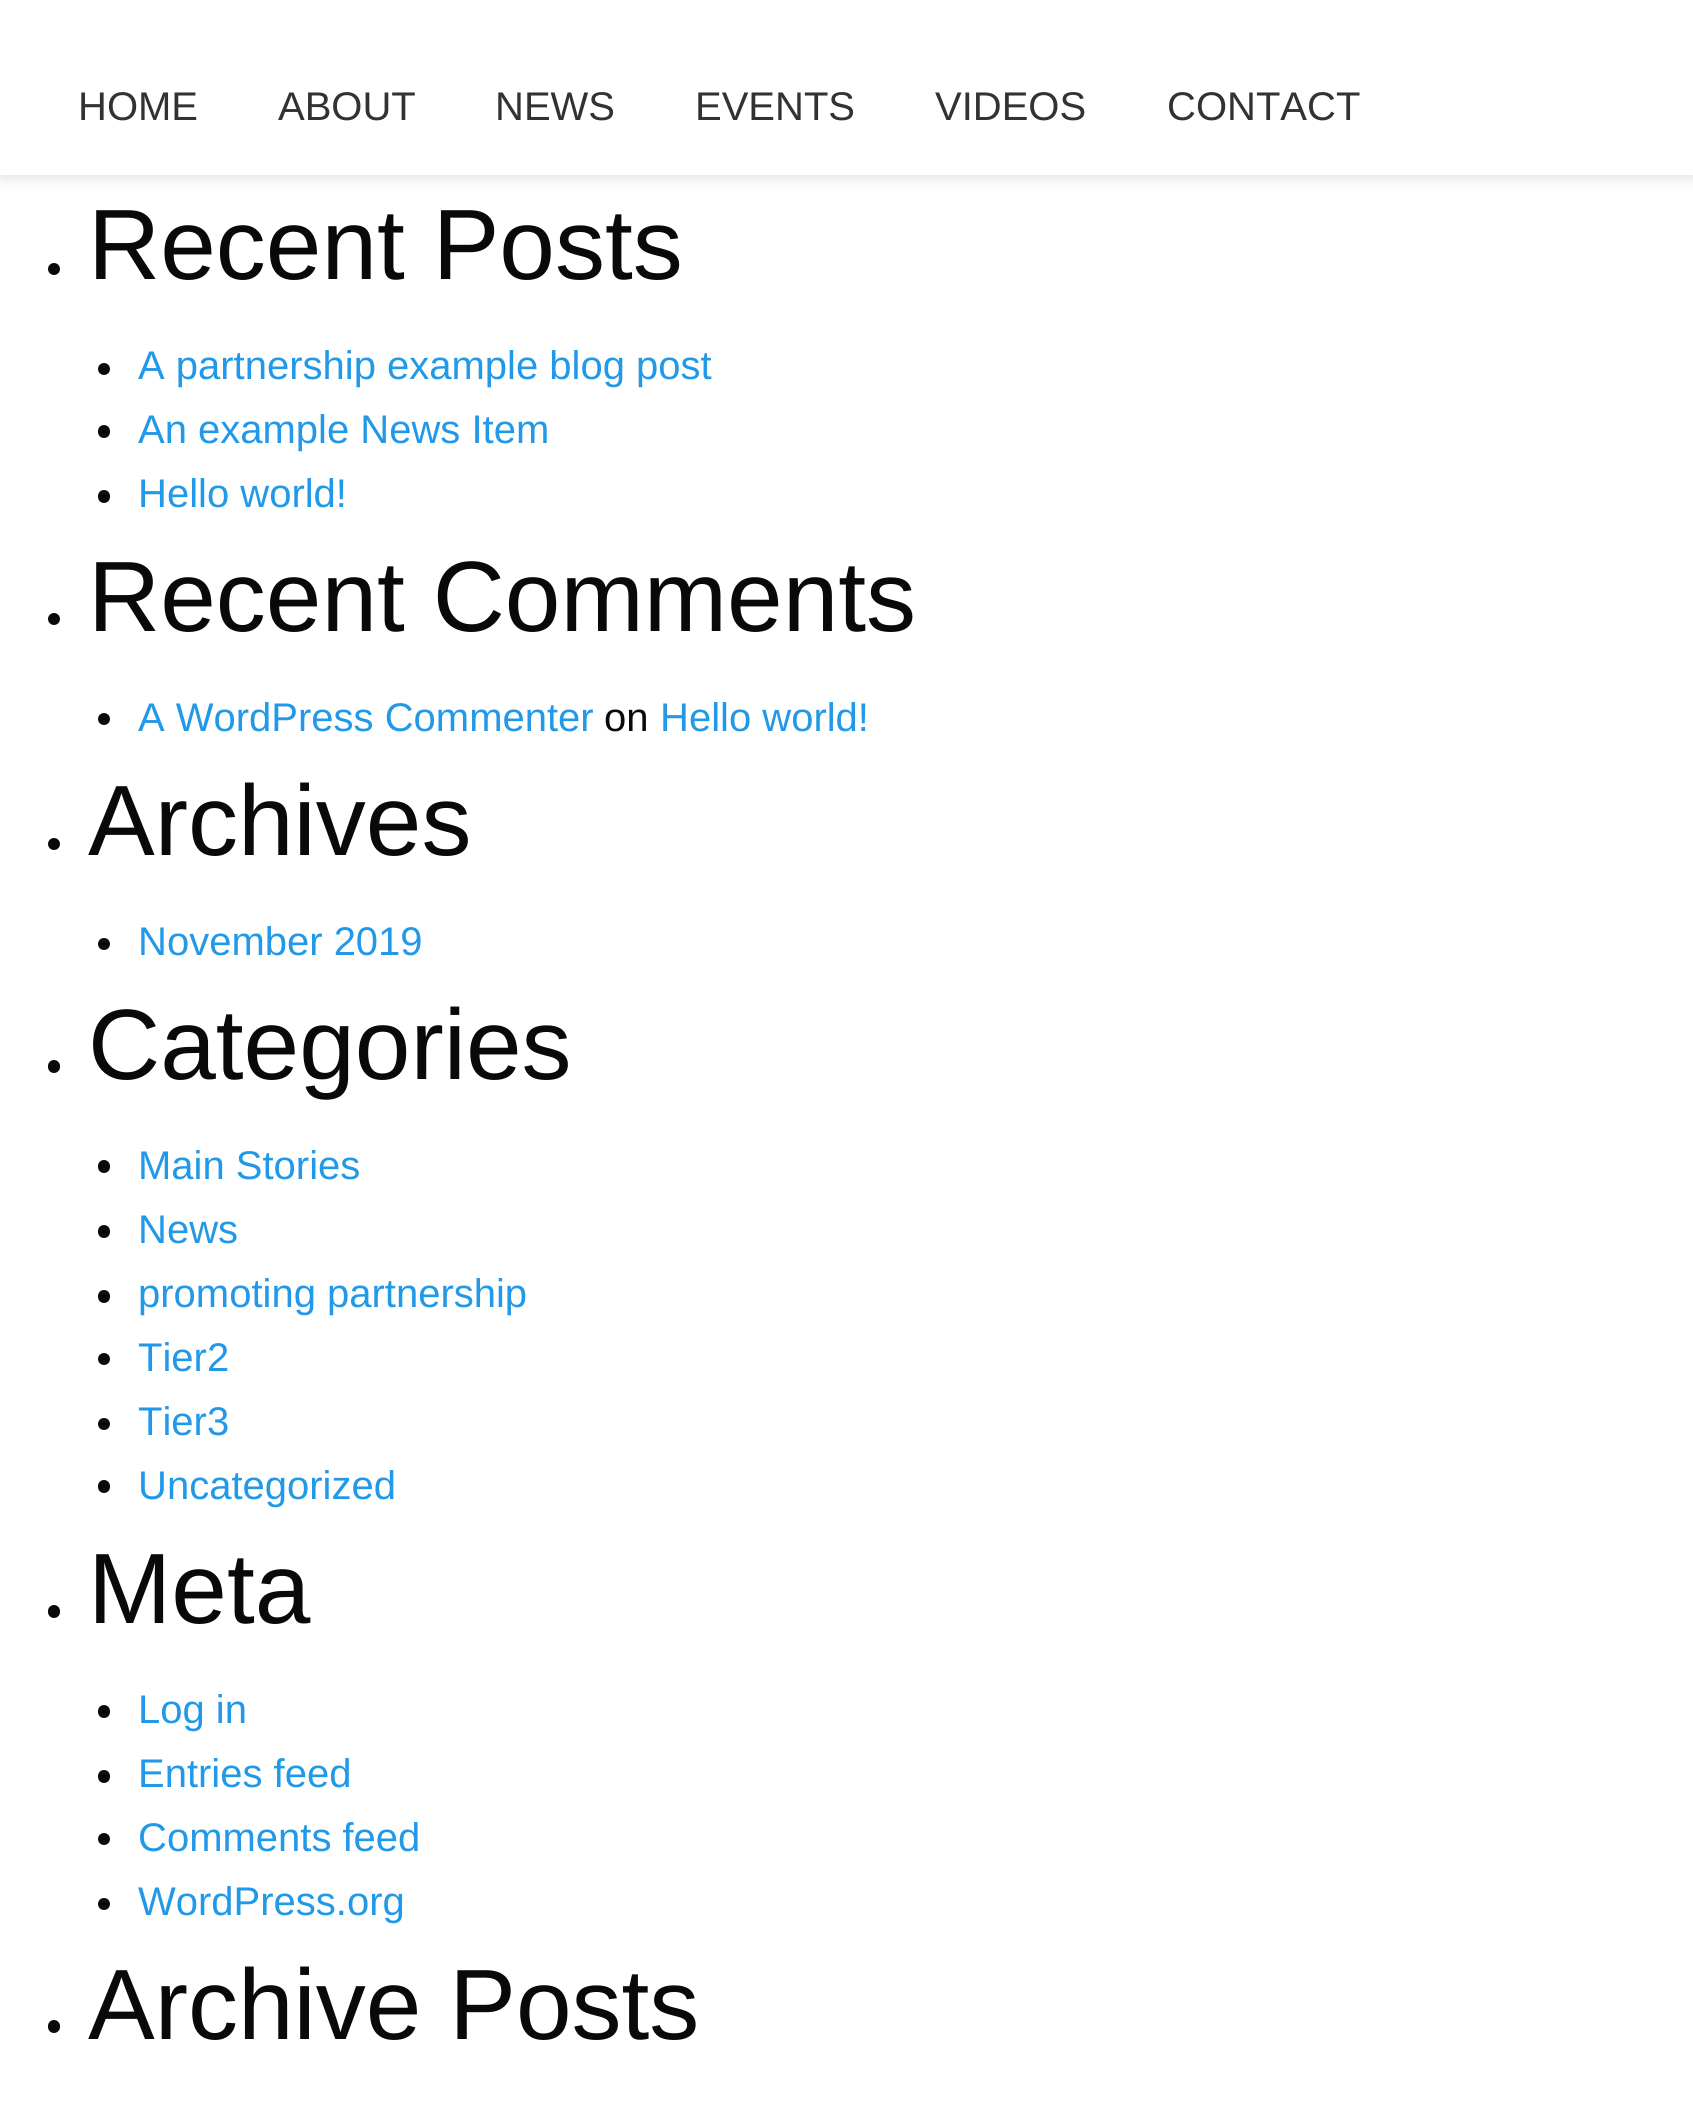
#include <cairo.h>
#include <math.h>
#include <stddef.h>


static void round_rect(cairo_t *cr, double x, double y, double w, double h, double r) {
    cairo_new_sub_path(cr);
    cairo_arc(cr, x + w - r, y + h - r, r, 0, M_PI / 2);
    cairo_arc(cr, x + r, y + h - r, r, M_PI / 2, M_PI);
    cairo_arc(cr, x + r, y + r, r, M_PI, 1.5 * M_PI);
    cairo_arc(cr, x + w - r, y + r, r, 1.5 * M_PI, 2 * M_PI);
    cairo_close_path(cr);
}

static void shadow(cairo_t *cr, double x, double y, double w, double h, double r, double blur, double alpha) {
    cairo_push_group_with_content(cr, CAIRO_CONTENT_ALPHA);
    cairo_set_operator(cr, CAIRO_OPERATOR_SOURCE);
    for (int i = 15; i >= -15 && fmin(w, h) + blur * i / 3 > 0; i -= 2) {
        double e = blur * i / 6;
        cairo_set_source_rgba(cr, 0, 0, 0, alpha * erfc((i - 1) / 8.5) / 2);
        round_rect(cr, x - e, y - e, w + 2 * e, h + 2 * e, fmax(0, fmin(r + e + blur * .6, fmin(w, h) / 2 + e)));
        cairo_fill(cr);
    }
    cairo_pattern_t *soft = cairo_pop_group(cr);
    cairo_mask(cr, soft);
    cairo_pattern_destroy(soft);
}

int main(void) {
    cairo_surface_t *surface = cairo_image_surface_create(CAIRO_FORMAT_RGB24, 1693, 2111);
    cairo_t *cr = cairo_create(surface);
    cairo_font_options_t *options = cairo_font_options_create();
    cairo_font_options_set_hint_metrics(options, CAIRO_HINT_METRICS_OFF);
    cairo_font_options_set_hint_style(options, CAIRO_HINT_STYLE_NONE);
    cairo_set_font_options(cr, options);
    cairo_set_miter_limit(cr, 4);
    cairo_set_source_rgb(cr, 1, 1, 1);
    cairo_paint(cr);
    cairo_set_source_rgb(cr, 0, 0, 0);
    shadow(cr, 0, 5, 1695, 175, 0, 6, 0.1);
    cairo_set_source_rgb(cr, 1, 1, 1);
    cairo_rectangle(cr, 0, 0, 1693, 175);
    cairo_fill(cr);
    cairo_select_font_face(cr, "Liberation Sans", CAIRO_FONT_SLANT_NORMAL, CAIRO_FONT_WEIGHT_NORMAL);
    cairo_set_font_size(cr, 40);
    cairo_set_source_rgb(cr, 0.204, 0.196, 0.192);
    cairo_move_to(cr, 78, 120);
    cairo_show_text(cr, "HOME");
    cairo_move_to(cr, 278, 120);
    cairo_show_text(cr, "ABOUT");
    cairo_move_to(cr, 495, 120);
    cairo_show_text(cr, "NEWS");
    cairo_move_to(cr, 695, 120);
    cairo_show_text(cr, "EVENTS");
    cairo_move_to(cr, 935, 120);
    cairo_show_text(cr, "VIDEOS");
    cairo_move_to(cr, 1167, 120);
    cairo_show_text(cr, "CONTACT");
    cairo_set_source_rgb(cr, 0.039, 0.039, 0.039);
    cairo_new_path(cr);
    cairo_arc(cr, 54, 269, 6, 0, 2 * M_PI);
    cairo_fill(cr);
    cairo_set_font_size(cr, 100);
    cairo_move_to(cr, 88, 279);
    cairo_show_text(cr, "Recent Posts");
    cairo_new_path(cr);
    cairo_arc(cr, 104, 369, 6, 0, 2 * M_PI);
    cairo_fill(cr);
    cairo_set_font_size(cr, 40);
    cairo_set_source_rgb(cr, 0.129, 0.6, 0.91);
    cairo_move_to(cr, 138, 379);
    cairo_show_text(cr, "A partnership example blog post");
    cairo_set_source_rgb(cr, 0.039, 0.039, 0.039);
    round_rect(cr, 98, 425, 12, 13, 6);
    cairo_fill(cr);
    cairo_set_source_rgb(cr, 0.129, 0.6, 0.91);
    cairo_move_to(cr, 138, 443);
    cairo_show_text(cr, "An example News Item");
    cairo_set_source_rgb(cr, 0.039, 0.039, 0.039);
    round_rect(cr, 98, 490, 12, 13, 6);
    cairo_fill(cr);
    cairo_set_source_rgb(cr, 0.129, 0.6, 0.91);
    cairo_move_to(cr, 138, 507);
    cairo_show_text(cr, "Hello world!");
    cairo_set_source_rgb(cr, 0.039, 0.039, 0.039);
    cairo_new_path(cr);
    cairo_arc(cr, 54, 619, 6, 0, 2 * M_PI);
    cairo_fill(cr);
    cairo_set_font_size(cr, 100);
    cairo_move_to(cr, 88, 631);
    cairo_show_text(cr, "Recent Comments");
    cairo_new_path(cr);
    cairo_arc(cr, 104, 719, 6, 0, 2 * M_PI);
    cairo_fill(cr);
    cairo_set_font_size(cr, 40);
    cairo_set_source_rgb(cr, 0.129, 0.6, 0.91);
    cairo_move_to(cr, 138, 731);
    cairo_show_text(cr, "A WordPress Commenter");
    cairo_set_source_rgb(cr, 0.039, 0.039, 0.039);
    cairo_move_to(cr, 604, 731);
    cairo_show_text(cr, "on");
    cairo_set_source_rgb(cr, 0.129, 0.6, 0.91);
    cairo_move_to(cr, 660, 731);
    cairo_show_text(cr, "Hello world!");
    cairo_set_source_rgb(cr, 0.039, 0.039, 0.039);
    cairo_new_path(cr);
    cairo_arc(cr, 54, 844, 6, 0, 2 * M_PI);
    cairo_fill(cr);
    cairo_set_font_size(cr, 100);
    cairo_move_to(cr, 88, 855);
    cairo_show_text(cr, "Archives");
    cairo_new_path(cr);
    cairo_arc(cr, 104, 944, 6, 0, 2 * M_PI);
    cairo_fill(cr);
    cairo_set_font_size(cr, 40);
    cairo_set_source_rgb(cr, 0.129, 0.6, 0.91);
    cairo_move_to(cr, 138, 955);
    cairo_show_text(cr, "November 2019");
    cairo_set_source_rgb(cr, 0.039, 0.039, 0.039);
    round_rect(cr, 48, 1060, 12, 13, 6);
    cairo_fill(cr);
    cairo_set_font_size(cr, 100);
    cairo_move_to(cr, 88, 1079);
    cairo_show_text(cr, "Categories");
    round_rect(cr, 98, 1160, 12, 13, 6);
    cairo_fill(cr);
    cairo_set_font_size(cr, 40);
    cairo_set_source_rgb(cr, 0.129, 0.6, 0.91);
    cairo_move_to(cr, 138, 1179);
    cairo_show_text(cr, "Main Stories");
    cairo_set_source_rgb(cr, 0.039, 0.039, 0.039);
    round_rect(cr, 98, 1225, 12, 13, 6);
    cairo_fill(cr);
    cairo_set_source_rgb(cr, 0.129, 0.6, 0.91);
    cairo_move_to(cr, 138, 1243);
    cairo_show_text(cr, "News");
    cairo_set_source_rgb(cr, 0.039, 0.039, 0.039);
    round_rect(cr, 98, 1290, 12, 13, 6);
    cairo_fill(cr);
    cairo_set_source_rgb(cr, 0.129, 0.6, 0.91);
    cairo_move_to(cr, 138, 1307);
    cairo_show_text(cr, "promoting partnership");
    cairo_set_source_rgb(cr, 0.039, 0.039, 0.039);
    cairo_new_path(cr);
    cairo_arc(cr, 104, 1359, 6, 0, 2 * M_PI);
    cairo_fill(cr);
    cairo_set_source_rgb(cr, 0.129, 0.6, 0.91);
    cairo_move_to(cr, 138, 1371);
    cairo_show_text(cr, "Tier2");
    cairo_set_source_rgb(cr, 0.039, 0.039, 0.039);
    cairo_new_path(cr);
    cairo_arc(cr, 104, 1424, 6, 0, 2 * M_PI);
    cairo_fill(cr);
    cairo_set_source_rgb(cr, 0.129, 0.6, 0.91);
    cairo_move_to(cr, 138, 1435);
    cairo_show_text(cr, "Tier3");
    cairo_set_source_rgb(cr, 0.039, 0.039, 0.039);
    round_rect(cr, 98, 1480, 12, 13, 6);
    cairo_fill(cr);
    cairo_set_source_rgb(cr, 0.129, 0.6, 0.91);
    cairo_move_to(cr, 138, 1499);
    cairo_show_text(cr, "Uncategorized");
    cairo_set_source_rgb(cr, 0.039, 0.039, 0.039);
    round_rect(cr, 48, 1605, 12, 13, 6);
    cairo_fill(cr);
    cairo_set_font_size(cr, 100);
    cairo_move_to(cr, 88, 1623);
    cairo_show_text(cr, "Meta");
    round_rect(cr, 98, 1705, 12, 13, 6);
    cairo_fill(cr);
    cairo_set_font_size(cr, 40);
    cairo_set_source_rgb(cr, 0.129, 0.6, 0.91);
    cairo_move_to(cr, 138, 1723);
    cairo_show_text(cr, "Log in");
    cairo_set_source_rgb(cr, 0.039, 0.039, 0.039);
    round_rect(cr, 98, 1770, 12, 13, 6);
    cairo_fill(cr);
    cairo_set_source_rgb(cr, 0.129, 0.6, 0.91);
    cairo_move_to(cr, 138, 1787);
    cairo_show_text(cr, "Entries feed");
    cairo_set_source_rgb(cr, 0.039, 0.039, 0.039);
    cairo_new_path(cr);
    cairo_arc(cr, 104, 1839, 6, 0, 2 * M_PI);
    cairo_fill(cr);
    cairo_set_source_rgb(cr, 0.129, 0.6, 0.91);
    cairo_move_to(cr, 138, 1851);
    cairo_show_text(cr, "Comments feed");
    cairo_set_source_rgb(cr, 0.039, 0.039, 0.039);
    cairo_new_path(cr);
    cairo_arc(cr, 104, 1904, 6, 0, 2 * M_PI);
    cairo_fill(cr);
    cairo_set_source_rgb(cr, 0.129, 0.6, 0.91);
    cairo_move_to(cr, 138, 1915);
    cairo_show_text(cr, "WordPress.org");
    cairo_set_source_rgb(cr, 0.039, 0.039, 0.039);
    round_rect(cr, 48, 2020, 12, 13, 6);
    cairo_fill(cr);
    cairo_set_font_size(cr, 100);
    cairo_move_to(cr, 88, 2039);
    cairo_show_text(cr, "Archive Posts");
    cairo_surface_write_to_png(surface, "page.png");
    cairo_font_options_destroy(options);
    cairo_destroy(cr);
    cairo_surface_destroy(surface);
    return 0;
}
